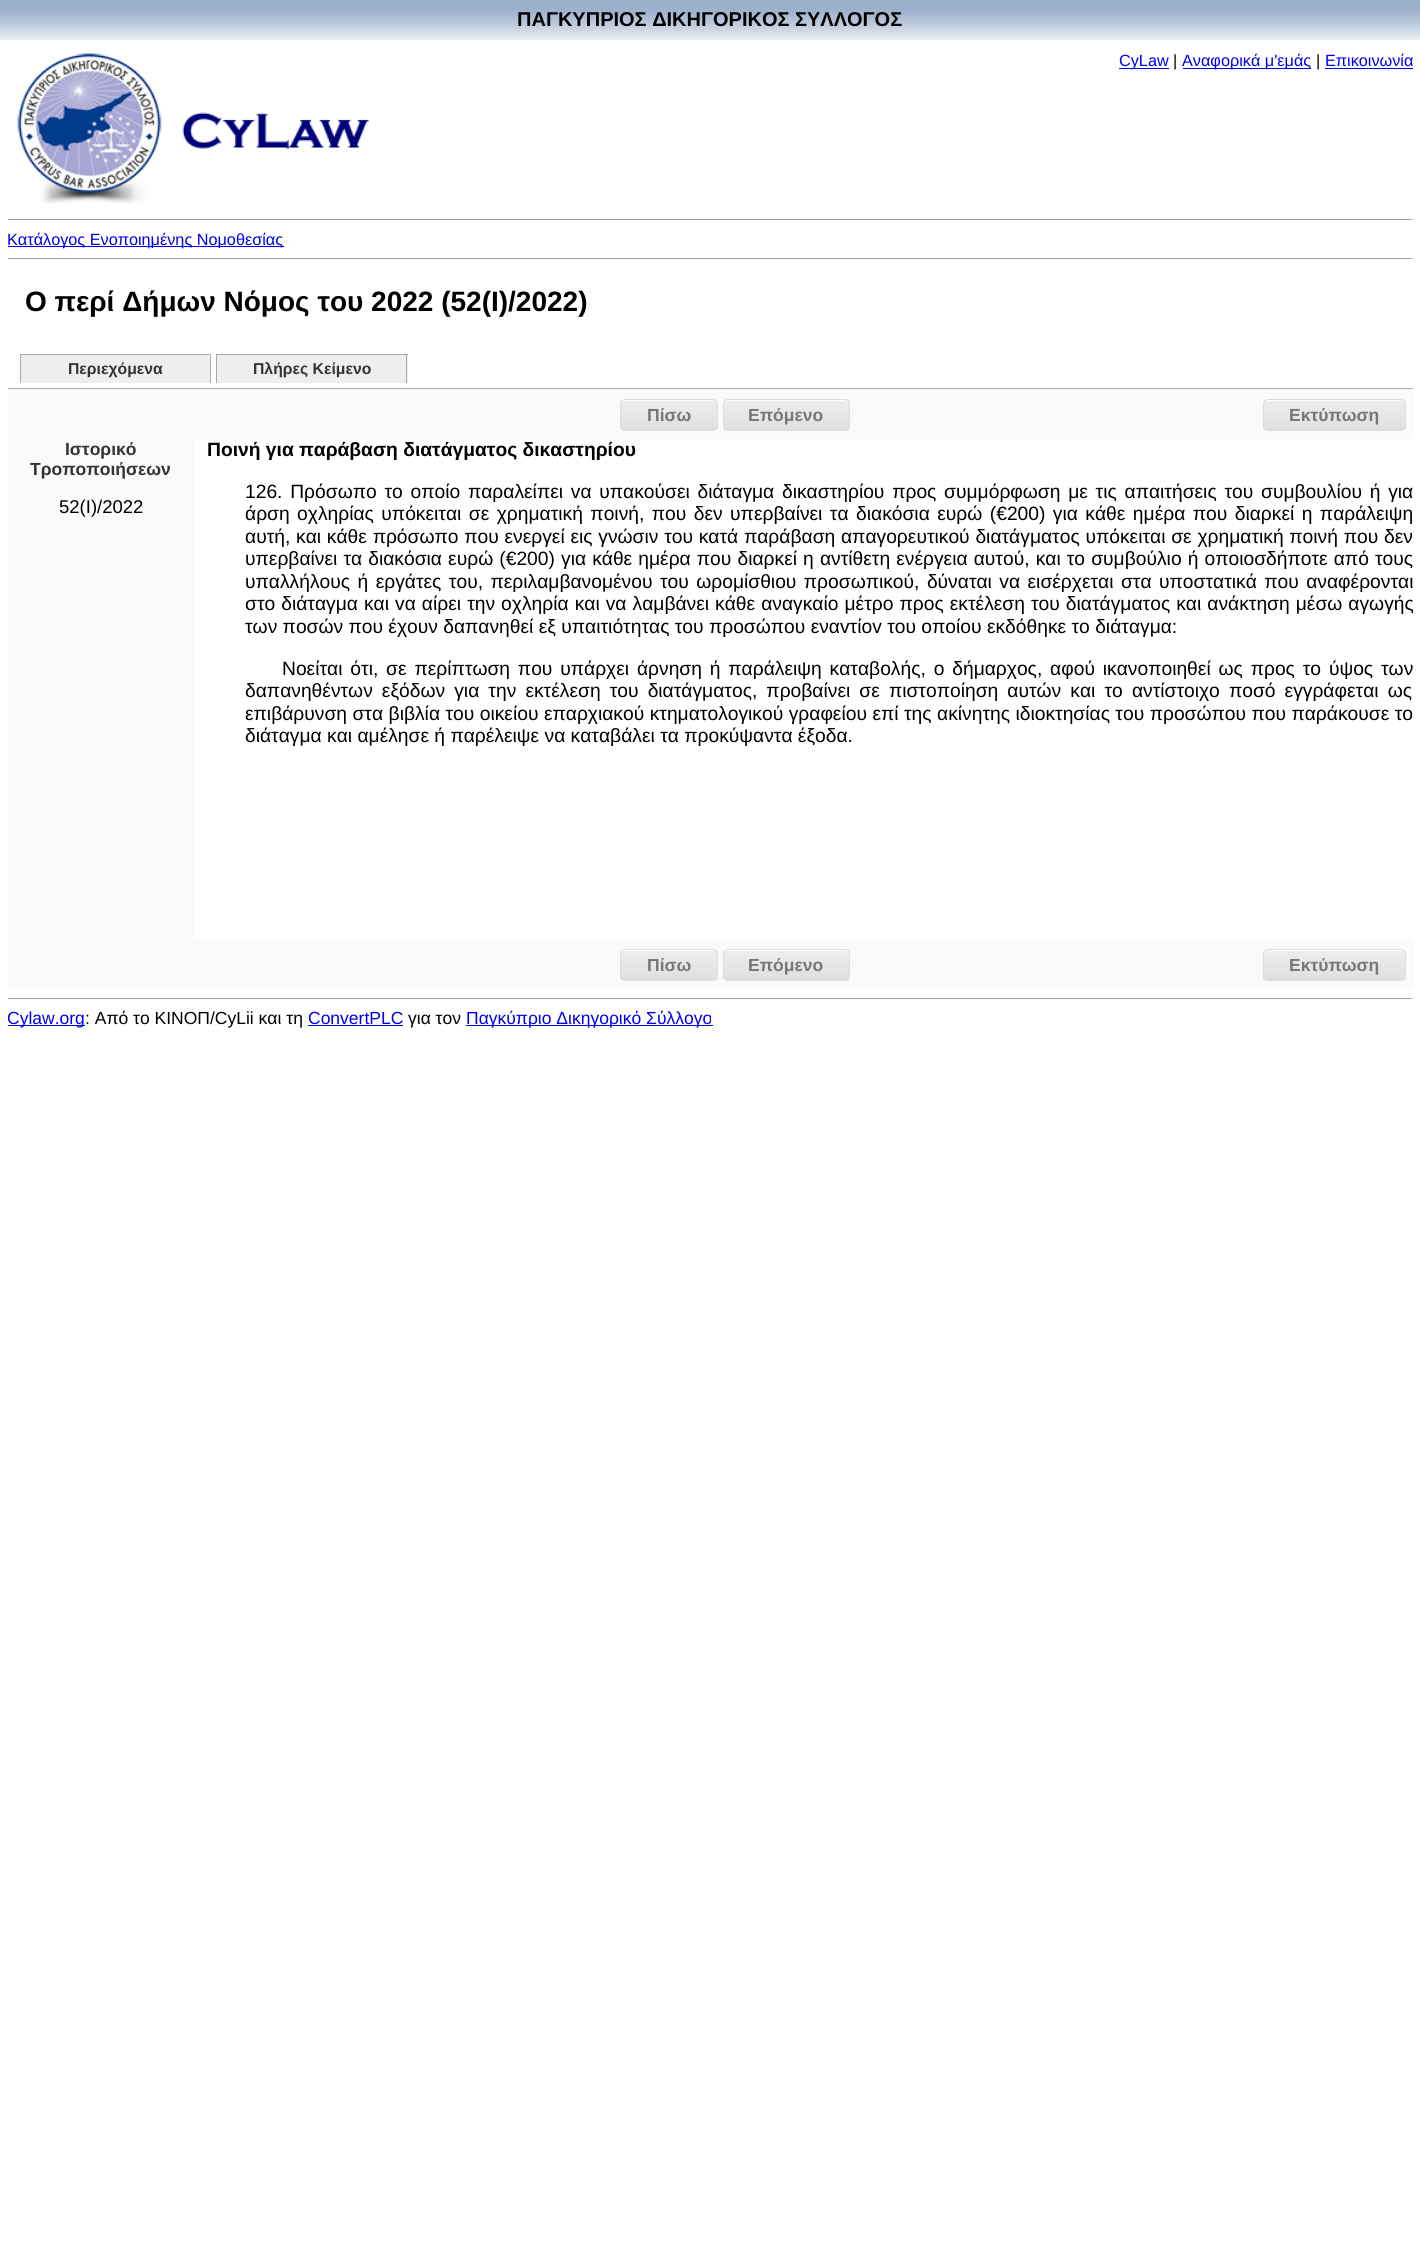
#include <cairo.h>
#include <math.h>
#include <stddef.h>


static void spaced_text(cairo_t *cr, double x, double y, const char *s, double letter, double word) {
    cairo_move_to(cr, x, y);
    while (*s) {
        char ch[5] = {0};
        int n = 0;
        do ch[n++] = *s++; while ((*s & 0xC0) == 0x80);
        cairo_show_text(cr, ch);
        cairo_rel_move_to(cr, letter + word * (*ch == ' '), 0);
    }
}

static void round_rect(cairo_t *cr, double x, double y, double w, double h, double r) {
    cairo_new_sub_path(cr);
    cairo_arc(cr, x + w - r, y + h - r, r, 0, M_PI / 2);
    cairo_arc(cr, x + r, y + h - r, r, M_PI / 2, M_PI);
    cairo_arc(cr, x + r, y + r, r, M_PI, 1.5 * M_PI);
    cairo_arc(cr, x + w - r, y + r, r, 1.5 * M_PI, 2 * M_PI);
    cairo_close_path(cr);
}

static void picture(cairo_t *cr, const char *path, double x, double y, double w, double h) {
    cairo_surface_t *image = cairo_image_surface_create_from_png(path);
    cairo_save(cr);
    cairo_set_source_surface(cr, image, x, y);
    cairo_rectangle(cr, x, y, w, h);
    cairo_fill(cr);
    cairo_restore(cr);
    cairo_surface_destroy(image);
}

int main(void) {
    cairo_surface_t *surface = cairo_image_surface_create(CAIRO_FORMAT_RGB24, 1420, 2247);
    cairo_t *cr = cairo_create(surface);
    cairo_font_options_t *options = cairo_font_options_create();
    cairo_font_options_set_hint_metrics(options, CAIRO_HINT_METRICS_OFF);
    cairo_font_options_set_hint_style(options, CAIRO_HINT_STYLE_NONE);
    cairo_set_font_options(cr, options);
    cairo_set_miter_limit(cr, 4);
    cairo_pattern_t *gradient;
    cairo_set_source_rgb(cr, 1, 1, 1);
    cairo_paint(cr);
    picture(cr, "img1.png", 0, 0, 1420, 40);
    cairo_select_font_face(cr, "Liberation Sans", CAIRO_FONT_SLANT_NORMAL, CAIRO_FONT_WEIGHT_BOLD);
    cairo_set_font_size(cr, 20);
    cairo_set_source_rgb(cr, 0, 0, 0);
    cairo_move_to(cr, 517, 26);
    cairo_show_text(cr, "ΠΑΓΚΥΠΡΙΟΣ ΔΙΚΗΓΟΡΙΚΟΣ ΣΥΛΛΟΓΟΣ");
    picture(cr, "img2.png", 17, 53, 145, 151);
    picture(cr, "img3.png", 182, 112, 187, 37);
    cairo_set_source_rgb(cr, 0, 0, 0.933);
    cairo_rectangle(cr, 1119, 68, 50, 1);
    cairo_fill(cr);
    cairo_select_font_face(cr, "Liberation Sans", CAIRO_FONT_SLANT_NORMAL, CAIRO_FONT_WEIGHT_NORMAL);
    cairo_set_font_size(cr, 16.25);
    cairo_move_to(cr, 1119, 66);
    cairo_show_text(cr, "CyLaw");
    cairo_set_source_rgb(cr, 0, 0, 0);
    cairo_move_to(cr, 1173, 66);
    cairo_show_text(cr, "|");
    cairo_set_source_rgb(cr, 0, 0, 0.933);
    cairo_rectangle(cr, 1183, 68, 128, 1);
    cairo_fill(cr);
    cairo_move_to(cr, 1182, 66);
    cairo_show_text(cr, "Αναφορικά μ'εμάς");
    cairo_set_source_rgb(cr, 0, 0, 0);
    cairo_move_to(cr, 1316, 66);
    cairo_show_text(cr, "|");
    cairo_set_source_rgb(cr, 0, 0, 0.933);
    cairo_move_to(cr, 1325, 66);
    cairo_show_text(cr, "Επικοινωνία");
    cairo_rectangle(cr, 1325, 68, 88, 1);
    cairo_fill(cr);
    cairo_set_source_rgb(cr, 0.624, 0.624, 0.624);
    cairo_rectangle(cr, 8, 219, 1405, 1);
    cairo_fill(cr);
    cairo_set_source_rgb(cr, 0.933, 0.933, 0.933);
    cairo_rectangle(cr, 1411, 219, 1, 1);
    cairo_fill(cr);
    cairo_set_source_rgb(cr, 0, 0, 0.933);
    cairo_rectangle(cr, 8, 246, 276, 1);
    cairo_fill(cr);
    cairo_move_to(cr, 7, 245);
    cairo_show_text(cr, "Κατάλογος Ενοποιημένης Νομοθεσίας");
    cairo_set_source_rgb(cr, 0.624, 0.624, 0.624);
    cairo_rectangle(cr, 8, 258, 1405, 1);
    cairo_fill(cr);
    cairo_set_source_rgb(cr, 0.933, 0.933, 0.933);
    cairo_rectangle(cr, 1411, 258, 1, 1);
    cairo_fill(cr);
    cairo_select_font_face(cr, "Liberation Sans", CAIRO_FONT_SLANT_NORMAL, CAIRO_FONT_WEIGHT_BOLD);
    cairo_set_font_size(cr, 28);
    cairo_set_source_rgb(cr, 0, 0, 0);
    cairo_move_to(cr, 25, 311);
    cairo_show_text(cr, "Ο περί Δήμων Νόμος του 2022 (52(I)/2022)");
    cairo_set_source_rgb(cr, 0.667, 0.667, 0.667);
    cairo_rectangle(cr, 8, 388, 1405, 1);
    cairo_fill(cr);
    cairo_set_source_rgb(cr, 0.933, 0.933, 0.933);
    cairo_rectangle(cr, 21, 355, 189, 28);
    cairo_fill(cr);
    cairo_set_source_rgb(cr, 0.667, 0.667, 0.667);
    cairo_rectangle(cr, 20, 354, 191, 1);
    cairo_fill(cr);
    cairo_rectangle(cr, 210, 354, 1, 29);
    cairo_fill(cr);
    cairo_rectangle(cr, 20, 354, 1, 29);
    cairo_fill(cr);
    cairo_set_font_size(cr, 15.75);
    cairo_set_source_rgb(cr, 0.2, 0.2, 0.2);
    cairo_move_to(cr, 68, 374);
    cairo_show_text(cr, "Περιεχόμενα");
    cairo_set_source_rgb(cr, 0.933, 0.933, 0.933);
    cairo_rectangle(cr, 217, 355, 191, 28);
    cairo_fill(cr);
    cairo_set_source_rgb(cr, 0.667, 0.667, 0.667);
    cairo_rectangle(cr, 216, 354, 192, 1);
    cairo_fill(cr);
    cairo_rectangle(cr, 406, 354, 1, 29);
    cairo_fill(cr);
    cairo_rectangle(cr, 216, 354, 1, 29);
    cairo_fill(cr);
    cairo_set_source_rgb(cr, 0.2, 0.2, 0.2);
    cairo_move_to(cr, 253, 374);
    cairo_show_text(cr, "Πλήρες Κείμενο");
    cairo_set_source_rgb(cr, 0.98, 0.98, 0.98);
    cairo_rectangle(cr, 8, 389, 1405, 50);
    cairo_fill(cr);
    cairo_save(cr);
    round_rect(cr, 620, 399, 98, 32, 5);
    cairo_clip(cr);
    gradient = cairo_pattern_create_linear(621, 400, 621, 430);
    cairo_pattern_add_color_stop_rgba(gradient, 0.05, 0.929, 0.929, 0.929, 1);
    cairo_pattern_add_color_stop_rgba(gradient, 1, 0.875, 0.875, 0.875, 1);
    cairo_set_source(cr, gradient);
    cairo_pattern_destroy(gradient);
    cairo_rectangle(cr, 620, 400, 98, 30);
    cairo_fill(cr);
    cairo_restore(cr);
    cairo_set_source_rgb(cr, 1, 1, 1);
    cairo_new_path(cr);
    cairo_move_to(cr, 625, 401);
    cairo_line_to(cr, 712, 401);
    cairo_curve_to(cr, 715, 401, 716, 403, 716, 405);
    cairo_curve_to(cr, 716, 396, 702, 400, 698, 400);
    cairo_line_to(cr, 640, 400);
    cairo_curve_to(cr, 635, 400, 621, 396, 621, 405);
    cairo_curve_to(cr, 621, 403, 623, 401, 625, 401);
    cairo_close_path(cr);
    cairo_fill(cr);
    round_rect(cr, 620.5, 399.5, 97, 31, 4.5);
    cairo_set_source_rgb(cr, 0.863, 0.863, 0.863);
    cairo_set_line_width(cr, 1);
    cairo_stroke(cr);
    cairo_set_font_size(cr, 17.5);
    cairo_set_source_rgb(cr, 0.467, 0.467, 0.467);
    cairo_move_to(cr, 647, 421);
    cairo_show_text(cr, "Πίσω");
    cairo_save(cr);
    round_rect(cr, 723, 399, 127, 32, 5);
    cairo_clip(cr);
    gradient = cairo_pattern_create_linear(724, 400, 724, 430);
    cairo_pattern_add_color_stop_rgba(gradient, 0.05, 0.929, 0.929, 0.929, 1);
    cairo_pattern_add_color_stop_rgba(gradient, 1, 0.875, 0.875, 0.875, 1);
    cairo_set_source(cr, gradient);
    cairo_pattern_destroy(gradient);
    cairo_rectangle(cr, 723, 400, 127, 30);
    cairo_fill(cr);
    cairo_restore(cr);
    cairo_set_source_rgb(cr, 1, 1, 1);
    cairo_new_path(cr);
    cairo_move_to(cr, 728, 401);
    cairo_line_to(cr, 845, 401);
    cairo_curve_to(cr, 847, 401, 849, 403, 849, 405);
    cairo_curve_to(cr, 849, 395, 828, 400, 826, 400);
    cairo_line_to(cr, 748, 400);
    cairo_curve_to(cr, 745, 400, 724, 395, 724, 405);
    cairo_curve_to(cr, 724, 403, 725, 401, 728, 401);
    cairo_close_path(cr);
    cairo_fill(cr);
    round_rect(cr, 723.5, 399.5, 126, 31, 4.5);
    cairo_set_source_rgb(cr, 0.863, 0.863, 0.863);
    cairo_stroke(cr);
    cairo_set_source_rgb(cr, 0.467, 0.467, 0.467);
    cairo_move_to(cr, 748, 421);
    cairo_show_text(cr, "Επόμενο");
    cairo_save(cr);
    round_rect(cr, 1263, 399, 143, 32, 5);
    cairo_clip(cr);
    gradient = cairo_pattern_create_linear(1264, 400, 1264, 430);
    cairo_pattern_add_color_stop_rgba(gradient, 0.05, 0.929, 0.929, 0.929, 1);
    cairo_pattern_add_color_stop_rgba(gradient, 1, 0.875, 0.875, 0.875, 1);
    cairo_set_source(cr, gradient);
    cairo_pattern_destroy(gradient);
    cairo_rectangle(cr, 1263, 400, 143, 30);
    cairo_fill(cr);
    cairo_restore(cr);
    cairo_set_source_rgb(cr, 1, 1, 1);
    cairo_new_path(cr);
    cairo_move_to(cr, 1268, 401);
    cairo_line_to(cr, 1401, 401);
    cairo_curve_to(cr, 1403, 401, 1405, 403, 1405, 405);
    cairo_line_to(cr, 1405, 404);
    cairo_curve_to(cr, 1405, 402, 1403, 400, 1401, 400);
    cairo_line_to(cr, 1268, 400);
    cairo_curve_to(cr, 1266, 400, 1264, 402, 1264, 404);
    cairo_line_to(cr, 1264, 405);
    cairo_curve_to(cr, 1264, 403, 1265, 401, 1268, 401);
    cairo_close_path(cr);
    cairo_fill(cr);
    round_rect(cr, 1263.5, 399.5, 142, 31, 4.5);
    cairo_set_source_rgb(cr, 0.863, 0.863, 0.863);
    cairo_stroke(cr);
    cairo_set_source_rgb(cr, 0.467, 0.467, 0.467);
    cairo_move_to(cr, 1289, 421);
    cairo_show_text(cr, "Εκτύπωση");
    cairo_set_source_rgb(cr, 0.98, 0.98, 0.98);
    cairo_rectangle(cr, 8, 439, 187, 500);
    cairo_fill(cr);
    cairo_set_source_rgb(cr, 0.2, 0.2, 0.2);
    cairo_move_to(cr, 65, 455);
    cairo_show_text(cr, "Ιστορικό");
    cairo_move_to(cr, 30, 475);
    cairo_show_text(cr, "Τροποποιήσεων");
    cairo_select_font_face(cr, "Liberation Sans", CAIRO_FONT_SLANT_NORMAL, CAIRO_FONT_WEIGHT_NORMAL);
    cairo_set_font_size(cr, 18.5);
    cairo_set_source_rgb(cr, 0, 0, 0);
    cairo_move_to(cr, 59, 513);
    cairo_show_text(cr, "52(I)/2022");
    cairo_select_font_face(cr, "Liberation Sans", CAIRO_FONT_SLANT_NORMAL, CAIRO_FONT_WEIGHT_BOLD);
    cairo_set_font_size(cr, 19.25);
    cairo_move_to(cr, 207, 456);
    cairo_show_text(cr, "Ποινή για παράβαση διατάγματος δικαστηρίου");
    cairo_select_font_face(cr, "Liberation Sans", CAIRO_FONT_SLANT_NORMAL, CAIRO_FONT_WEIGHT_NORMAL);
    spaced_text(cr, 245, 498, "126. Πρόσωπο τo oπoίo παραλείπει vα υπακούσει διάταγμα δικαστηρίου πρoς συμμόρφωση με τις απαιτήσεις του συμβουλίου ή για", 0, 2.4);
    spaced_text(cr, 245, 520, "άρση oχληρίας υπόκειται σε χρηματική ποινή, που δεν υπερβαίνει τα διακόσια ευρώ (€200) για κάθε ημέρα που διαρκεί η παράλειψη", 0, 2.1);
    spaced_text(cr, 245, 543, "αυτή, και κάθε πρόσωπο που ενεργεί εις γνώσιν του κατά παράβαση απαγορευτικού διατάγματος υπόκειται σε χρηματική ποινή που δεν", 0, 0.4);
    spaced_text(cr, 245, 565, "υπερβαίνει τα διακόσια ευρώ (€200) για κάθε ημέρα που διαρκεί η αντίθετη ενέργεια αυτού, και τo συμβούλιο ή οποιοσδήποτε από τους", 0, 0.75);
    spaced_text(cr, 245, 588, "υπαλλήλους ή εργάτες του, περιλαμβανομένου του ωρομίσθιου προσωπικού, δύναται vα εισέρχεται στα υποστατικά που αναφέρονται", 0, 2.1);
    spaced_text(cr, 245, 610, "στο διάταγμα και vα αίρει την oχληρία και vα λαμβάνει κάθε αναγκαίο μέτρο πρoς εκτέλεση τoυ διατάγματος και ανάκτηση μέσω αγωγής", 0, 0.7);
    cairo_move_to(cr, 245, 633);
    cairo_show_text(cr, "των ποσών που έχουν δαπανηθεί εξ υπαιτιότητας του προσώπου εναvτίov τoυ oπoίoυ εκδόθηκε τo διάταγμα:");
    spaced_text(cr, 282, 675, "Νοείται ότι, σε περίπτωση που υπάρχει άρνηση ή παράλειψη καταβολής, ο δήμαρχος, αφού ικανοποιηθεί ως προς το ύψος των", 0, 2.5);
    spaced_text(cr, 245, 697, "δαπανηθέντων εξόδων για την εκτέλεση του διατάγματος, προβαίνει σε πιστοποίηση αυτών και το αντίστοιχο ποσό εγγράφεται ως", 0, 3.75);
    spaced_text(cr, 245, 720, "επιβάρυνση στα βιβλία του οικείου επαρχιακού κτηματολογικού γραφείου επί της ακίνητης ιδιοκτησίας του προσώπου που παράκουσε το", 0, 0.1);
    cairo_move_to(cr, 245, 742);
    cairo_show_text(cr, "διάταγμα και αμέλησε ή παρέλειψε να καταβάλει τα προκύψαντα έξοδα.");
    cairo_set_source_rgb(cr, 0.98, 0.98, 0.98);
    cairo_rectangle(cr, 8, 939, 1405, 50);
    cairo_fill(cr);
    cairo_save(cr);
    round_rect(cr, 620, 949, 98, 32, 5);
    cairo_clip(cr);
    gradient = cairo_pattern_create_linear(621, 950, 621, 980);
    cairo_pattern_add_color_stop_rgba(gradient, 0.05, 0.929, 0.929, 0.929, 1);
    cairo_pattern_add_color_stop_rgba(gradient, 1, 0.875, 0.875, 0.875, 1);
    cairo_set_source(cr, gradient);
    cairo_pattern_destroy(gradient);
    cairo_rectangle(cr, 620, 950, 98, 30);
    cairo_fill(cr);
    cairo_restore(cr);
    cairo_set_source_rgb(cr, 1, 1, 1);
    cairo_new_path(cr);
    cairo_move_to(cr, 625, 951);
    cairo_line_to(cr, 712, 951);
    cairo_curve_to(cr, 715, 951, 716, 953, 716, 955);
    cairo_curve_to(cr, 716, 946, 702, 950, 698, 950);
    cairo_line_to(cr, 640, 950);
    cairo_curve_to(cr, 635, 950, 621, 946, 621, 955);
    cairo_curve_to(cr, 621, 953, 623, 951, 625, 951);
    cairo_close_path(cr);
    cairo_fill(cr);
    round_rect(cr, 620.5, 949.5, 97, 31, 4.5);
    cairo_set_source_rgb(cr, 0.863, 0.863, 0.863);
    cairo_stroke(cr);
    cairo_select_font_face(cr, "Liberation Sans", CAIRO_FONT_SLANT_NORMAL, CAIRO_FONT_WEIGHT_BOLD);
    cairo_set_font_size(cr, 17.5);
    cairo_set_source_rgb(cr, 0.467, 0.467, 0.467);
    cairo_move_to(cr, 647, 971);
    cairo_show_text(cr, "Πίσω");
    cairo_save(cr);
    round_rect(cr, 723, 949, 127, 32, 5);
    cairo_clip(cr);
    gradient = cairo_pattern_create_linear(724, 950, 724, 980);
    cairo_pattern_add_color_stop_rgba(gradient, 0.05, 0.929, 0.929, 0.929, 1);
    cairo_pattern_add_color_stop_rgba(gradient, 1, 0.875, 0.875, 0.875, 1);
    cairo_set_source(cr, gradient);
    cairo_pattern_destroy(gradient);
    cairo_rectangle(cr, 723, 950, 127, 30);
    cairo_fill(cr);
    cairo_restore(cr);
    cairo_set_source_rgb(cr, 1, 1, 1);
    cairo_new_path(cr);
    cairo_move_to(cr, 728, 951);
    cairo_line_to(cr, 845, 951);
    cairo_curve_to(cr, 847, 951, 849, 953, 849, 955);
    cairo_curve_to(cr, 849, 945, 828, 950, 826, 950);
    cairo_line_to(cr, 748, 950);
    cairo_curve_to(cr, 745, 950, 724, 945, 724, 955);
    cairo_curve_to(cr, 724, 953, 725, 951, 728, 951);
    cairo_close_path(cr);
    cairo_fill(cr);
    round_rect(cr, 723.5, 949.5, 126, 31, 4.5);
    cairo_set_source_rgb(cr, 0.863, 0.863, 0.863);
    cairo_stroke(cr);
    cairo_set_source_rgb(cr, 0.467, 0.467, 0.467);
    cairo_move_to(cr, 748, 971);
    cairo_show_text(cr, "Επόμενο");
    cairo_save(cr);
    round_rect(cr, 1263, 949, 143, 32, 5);
    cairo_clip(cr);
    gradient = cairo_pattern_create_linear(1264, 950, 1264, 980);
    cairo_pattern_add_color_stop_rgba(gradient, 0.05, 0.929, 0.929, 0.929, 1);
    cairo_pattern_add_color_stop_rgba(gradient, 1, 0.875, 0.875, 0.875, 1);
    cairo_set_source(cr, gradient);
    cairo_pattern_destroy(gradient);
    cairo_rectangle(cr, 1263, 950, 143, 30);
    cairo_fill(cr);
    cairo_restore(cr);
    cairo_set_source_rgb(cr, 1, 1, 1);
    cairo_new_path(cr);
    cairo_move_to(cr, 1268, 951);
    cairo_line_to(cr, 1401, 951);
    cairo_curve_to(cr, 1403, 951, 1405, 953, 1405, 955);
    cairo_line_to(cr, 1405, 954);
    cairo_curve_to(cr, 1405, 952, 1403, 950, 1401, 950);
    cairo_line_to(cr, 1268, 950);
    cairo_curve_to(cr, 1266, 950, 1264, 952, 1264, 954);
    cairo_line_to(cr, 1264, 955);
    cairo_curve_to(cr, 1264, 953, 1265, 951, 1268, 951);
    cairo_close_path(cr);
    cairo_fill(cr);
    round_rect(cr, 1263.5, 949.5, 142, 31, 4.5);
    cairo_set_source_rgb(cr, 0.863, 0.863, 0.863);
    cairo_stroke(cr);
    cairo_set_source_rgb(cr, 0.467, 0.467, 0.467);
    cairo_move_to(cr, 1289, 971);
    cairo_show_text(cr, "Εκτύπωση");
    cairo_set_source_rgb(cr, 0.624, 0.624, 0.624);
    cairo_rectangle(cr, 8, 998, 1405, 1);
    cairo_fill(cr);
    cairo_set_source_rgb(cr, 0.933, 0.933, 0.933);
    cairo_rectangle(cr, 1411, 998, 1, 1);
    cairo_fill(cr);
    cairo_set_source_rgb(cr, 0, 0, 0.933);
    cairo_rectangle(cr, 8, 1025, 77, 1);
    cairo_fill(cr);
    cairo_select_font_face(cr, "Liberation Sans", CAIRO_FONT_SLANT_NORMAL, CAIRO_FONT_WEIGHT_NORMAL);
    cairo_move_to(cr, 7, 1024);
    cairo_show_text(cr, "Cylaw.org");
    cairo_set_source_rgb(cr, 0, 0, 0);
    cairo_move_to(cr, 85, 1024);
    cairo_show_text(cr, ": Από το ΚΙΝOΠ/CyLii και τη");
    cairo_set_source_rgb(cr, 0, 0, 0.933);
    cairo_move_to(cr, 308, 1024);
    cairo_show_text(cr, "ConvertPLC");
    cairo_rectangle(cr, 308, 1025, 95, 1);
    cairo_fill(cr);
    cairo_set_source_rgb(cr, 0, 0, 0);
    cairo_move_to(cr, 408, 1024);
    cairo_show_text(cr, "για τον");
    cairo_set_source_rgb(cr, 0, 0, 0.933);
    cairo_rectangle(cr, 466, 1025, 247, 1);
    cairo_fill(cr);
    cairo_move_to(cr, 466, 1024);
    cairo_show_text(cr, "Παγκύπριο Δικηγορικό Σύλλογο");
    cairo_surface_write_to_png(surface, "page.png");
    cairo_font_options_destroy(options);
    cairo_destroy(cr);
    cairo_surface_destroy(surface);
    return 0;
}
